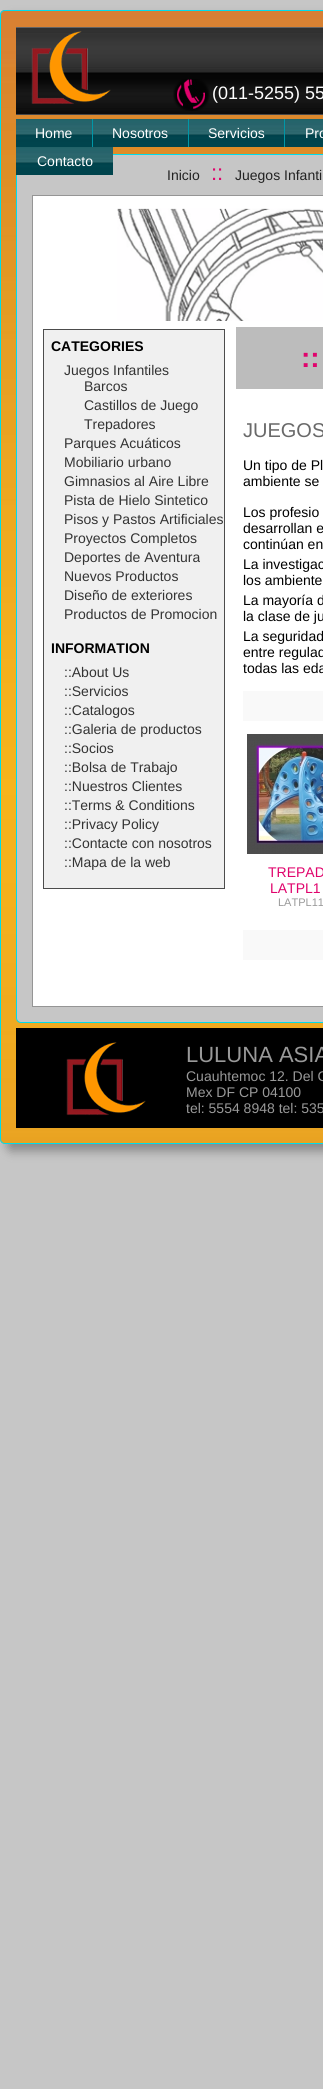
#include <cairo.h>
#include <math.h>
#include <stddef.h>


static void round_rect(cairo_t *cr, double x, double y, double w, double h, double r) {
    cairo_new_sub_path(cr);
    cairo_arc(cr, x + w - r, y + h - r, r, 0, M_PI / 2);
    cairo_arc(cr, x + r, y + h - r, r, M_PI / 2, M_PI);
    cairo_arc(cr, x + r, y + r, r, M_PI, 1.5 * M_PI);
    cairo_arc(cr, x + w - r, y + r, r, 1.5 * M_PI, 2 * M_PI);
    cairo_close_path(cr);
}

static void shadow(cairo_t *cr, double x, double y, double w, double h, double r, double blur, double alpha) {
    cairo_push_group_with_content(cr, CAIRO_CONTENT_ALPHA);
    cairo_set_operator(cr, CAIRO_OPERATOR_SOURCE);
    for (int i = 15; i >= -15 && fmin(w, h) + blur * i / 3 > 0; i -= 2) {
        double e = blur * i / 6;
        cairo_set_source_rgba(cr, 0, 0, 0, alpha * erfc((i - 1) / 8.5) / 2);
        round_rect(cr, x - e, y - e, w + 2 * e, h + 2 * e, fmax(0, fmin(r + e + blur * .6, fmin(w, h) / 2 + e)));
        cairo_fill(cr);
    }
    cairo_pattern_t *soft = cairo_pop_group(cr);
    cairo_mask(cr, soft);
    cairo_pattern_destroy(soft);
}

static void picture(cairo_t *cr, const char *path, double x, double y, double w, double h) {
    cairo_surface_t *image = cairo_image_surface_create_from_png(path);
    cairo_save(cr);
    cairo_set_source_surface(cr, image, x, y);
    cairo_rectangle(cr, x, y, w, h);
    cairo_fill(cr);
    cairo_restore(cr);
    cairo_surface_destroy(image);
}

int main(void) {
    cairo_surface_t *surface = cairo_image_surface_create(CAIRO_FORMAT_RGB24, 323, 2089);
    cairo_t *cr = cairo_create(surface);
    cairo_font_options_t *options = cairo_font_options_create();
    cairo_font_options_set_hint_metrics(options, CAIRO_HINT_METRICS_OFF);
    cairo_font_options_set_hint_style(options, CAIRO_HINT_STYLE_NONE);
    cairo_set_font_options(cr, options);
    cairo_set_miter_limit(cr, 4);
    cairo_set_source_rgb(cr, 0.776, 0.776, 0.776);
    cairo_paint(cr);
    cairo_set_source_rgb(cr, 0.533, 0.533, 0.533);
    shadow(cr, 7, 17, 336, 1134, 5, 5, 1);
    picture(cr, "img1.png", 0, 10, 323, 1134);
    round_rect(cr, 0.5, 10.5, 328, 1133, 4.5);
    cairo_set_source_rgb(cr, 0, 0.863, 0.925);
    cairo_set_line_width(cr, 1);
    cairo_stroke(cr);
    picture(cr, "img2.png", 16, 27, 307, 88);
    picture(cr, "img3.png", 31, 31, 80, 73);
    picture(cr, "img4.png", 173, 79, 37, 32);
    cairo_select_font_face(cr, "Liberation Sans", CAIRO_FONT_SLANT_NORMAL, CAIRO_FONT_WEIGHT_NORMAL);
    cairo_set_font_size(cr, 18);
    cairo_set_source_rgb(cr, 1, 1, 1);
    cairo_move_to(cr, 212, 99);
    cairo_show_text(cr, "(011-5255) 55");
    picture(cr, "img5.png", 16, 119, 76, 28);
    cairo_set_source_rgb(cr, 0, 0.592, 0.655);
    cairo_rectangle(cr, 92, 119, 1, 28);
    cairo_fill(cr);
    cairo_set_font_size(cr, 14);
    cairo_set_source_rgb(cr, 1, 1, 1);
    cairo_move_to(cr, 35, 138);
    cairo_show_text(cr, "Home");
    picture(cr, "img6.png", 93, 119, 95, 28);
    cairo_set_source_rgb(cr, 0, 0.592, 0.655);
    cairo_rectangle(cr, 188, 119, 1, 28);
    cairo_fill(cr);
    cairo_set_source_rgb(cr, 1, 1, 1);
    cairo_move_to(cr, 112, 138);
    cairo_show_text(cr, "Nosotros");
    picture(cr, "img6.png", 189, 119, 95, 28);
    cairo_set_source_rgb(cr, 0, 0.592, 0.655);
    cairo_rectangle(cr, 284, 119, 1, 28);
    cairo_fill(cr);
    cairo_set_source_rgb(cr, 1, 1, 1);
    cairo_move_to(cr, 208, 138);
    cairo_show_text(cr, "Servicios");
    picture(cr, "img7.png", 285, 119, 38, 28);
    cairo_move_to(cr, 305, 138);
    cairo_show_text(cr, "Pro");
    cairo_set_source_rgb(cr, 0.776, 0.776, 0.776);
    round_rect(cr, 16.5, 154.5, 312, 868, 4.5);
    cairo_fill_preserve(cr);
    cairo_set_source_rgb(cr, 0, 0.863, 0.925);
    cairo_stroke(cr);
    picture(cr, "img8.png", 16, 147, 97, 28);
    cairo_set_source_rgb(cr, 1, 1, 1);
    cairo_move_to(cr, 37, 166);
    cairo_show_text(cr, "Contacto");
    cairo_set_source_rgb(cr, 0.133, 0.133, 0.133);
    cairo_move_to(cr, 167, 180);
    cairo_show_text(cr, "Inicio");
    cairo_set_font_size(cr, 22);
    cairo_set_source_rgb(cr, 0.878, 0.012, 0.424);
    cairo_move_to(cr, 211, 180);
    cairo_show_text(cr, "::");
    cairo_set_font_size(cr, 14);
    cairo_set_source_rgb(cr, 0.133, 0.133, 0.133);
    cairo_move_to(cr, 235, 180);
    cairo_show_text(cr, "Juegos Infanti");
    cairo_set_source_rgb(cr, 1, 1, 1);
    cairo_rectangle(cr, 32.5, 195.5, 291, 811);
    cairo_fill_preserve(cr);
    cairo_set_source_rgb(cr, 0.584, 0.584, 0.584);
    cairo_stroke(cr);
    picture(cr, "img9.png", 117, 208, 206, 113);
    cairo_set_source_rgb(cr, 0.941, 0.941, 0.941);
    cairo_rectangle(cr, 43.5, 329.5, 181, 559);
    cairo_fill_preserve(cr);
    cairo_set_source_rgb(cr, 0.298, 0.298, 0.298);
    cairo_stroke(cr);
    cairo_select_font_face(cr, "Liberation Sans", CAIRO_FONT_SLANT_NORMAL, CAIRO_FONT_WEIGHT_BOLD);
    cairo_set_source_rgb(cr, 0, 0, 0);
    cairo_move_to(cr, 51, 351);
    cairo_show_text(cr, "CATEGORIES");
    cairo_select_font_face(cr, "Liberation Sans", CAIRO_FONT_SLANT_NORMAL, CAIRO_FONT_WEIGHT_NORMAL);
    cairo_set_source_rgb(cr, 0.2, 0.2, 0.2);
    cairo_move_to(cr, 64, 375);
    cairo_show_text(cr, "Juegos Infantiles");
    cairo_move_to(cr, 84, 391);
    cairo_show_text(cr, "Barcos");
    cairo_move_to(cr, 84, 410);
    cairo_show_text(cr, "Castillos de Juego");
    cairo_move_to(cr, 84, 429);
    cairo_show_text(cr, "Trepadores");
    cairo_move_to(cr, 64, 448);
    cairo_show_text(cr, "Parques Acuáticos");
    cairo_move_to(cr, 64, 467);
    cairo_show_text(cr, "Mobiliario urbano");
    cairo_move_to(cr, 64, 486);
    cairo_show_text(cr, "Gimnasios al Aire Libre");
    cairo_move_to(cr, 64, 505);
    cairo_show_text(cr, "Pista de Hielo Sintetico");
    cairo_move_to(cr, 64, 524);
    cairo_show_text(cr, "Pisos y Pastos Artificiales");
    cairo_move_to(cr, 64, 543);
    cairo_show_text(cr, "Proyectos Completos");
    cairo_move_to(cr, 64, 562);
    cairo_show_text(cr, "Deportes de Aventura");
    cairo_move_to(cr, 64, 581);
    cairo_show_text(cr, "Nuevos Productos");
    cairo_move_to(cr, 64, 600);
    cairo_show_text(cr, "Diseño de exteriores");
    cairo_move_to(cr, 64, 619);
    cairo_show_text(cr, "Productos de Promocion");
    cairo_select_font_face(cr, "Liberation Sans", CAIRO_FONT_SLANT_NORMAL, CAIRO_FONT_WEIGHT_BOLD);
    cairo_set_source_rgb(cr, 0, 0, 0);
    cairo_move_to(cr, 51, 653);
    cairo_show_text(cr, "INFORMATION");
    cairo_select_font_face(cr, "Liberation Sans", CAIRO_FONT_SLANT_NORMAL, CAIRO_FONT_WEIGHT_NORMAL);
    cairo_set_source_rgb(cr, 0.2, 0.2, 0.2);
    cairo_move_to(cr, 64, 677);
    cairo_show_text(cr, "::About Us");
    cairo_move_to(cr, 64, 696);
    cairo_show_text(cr, "::Servicios");
    cairo_move_to(cr, 64, 715);
    cairo_show_text(cr, "::Catalogos");
    cairo_move_to(cr, 64, 734);
    cairo_show_text(cr, "::Galeria de productos");
    cairo_move_to(cr, 64, 753);
    cairo_show_text(cr, "::Socios");
    cairo_move_to(cr, 64, 772);
    cairo_show_text(cr, "::Bolsa de Trabajo");
    cairo_move_to(cr, 64, 791);
    cairo_show_text(cr, "::Nuestros Clientes");
    cairo_move_to(cr, 64, 810);
    cairo_show_text(cr, "::Terms & Conditions");
    cairo_move_to(cr, 64, 829);
    cairo_show_text(cr, "::Privacy Policy");
    cairo_move_to(cr, 64, 848);
    cairo_show_text(cr, "::Contacte con nosotros");
    cairo_move_to(cr, 64, 867);
    cairo_show_text(cr, "::Mapa de la web");
    cairo_set_source_rgb(cr, 0.737, 0.737, 0.737);
    cairo_rectangle(cr, 236, 327, 87, 62);
    cairo_fill(cr);
    cairo_select_font_face(cr, "Liberation Sans", CAIRO_FONT_SLANT_NORMAL, CAIRO_FONT_WEIGHT_BOLD);
    cairo_set_font_size(cr, 28);
    cairo_set_source_rgb(cr, 0.878, 0.012, 0.424);
    cairo_move_to(cr, 301, 367);
    cairo_show_text(cr, "::");
    cairo_select_font_face(cr, "Liberation Sans", CAIRO_FONT_SLANT_NORMAL, CAIRO_FONT_WEIGHT_NORMAL);
    cairo_set_font_size(cr, 20);
    cairo_set_source_rgb(cr, 0.412, 0.412, 0.412);
    cairo_move_to(cr, 243, 437);
    cairo_show_text(cr, "JUEGOS");
    cairo_set_font_size(cr, 14);
    cairo_set_source_rgb(cr, 0, 0, 0);
    cairo_move_to(cr, 243, 470);
    cairo_show_text(cr, "Un tipo de Pl");
    cairo_move_to(cr, 243, 486);
    cairo_show_text(cr, "ambiente se");
    cairo_move_to(cr, 243, 517);
    cairo_show_text(cr, "Los profesio");
    cairo_move_to(cr, 243, 533);
    cairo_show_text(cr, "desarrollan e");
    cairo_move_to(cr, 243, 549);
    cairo_show_text(cr, "continúan en");
    cairo_move_to(cr, 243, 569);
    cairo_show_text(cr, "La investigac");
    cairo_move_to(cr, 243, 585);
    cairo_show_text(cr, "los ambiente");
    cairo_move_to(cr, 243, 605);
    cairo_show_text(cr, "La mayoría d");
    cairo_move_to(cr, 243, 621);
    cairo_show_text(cr, "la clase de ju");
    cairo_move_to(cr, 243, 641);
    cairo_show_text(cr, "La seguridad");
    cairo_move_to(cr, 243, 657);
    cairo_show_text(cr, "entre regulad");
    cairo_move_to(cr, 243, 673);
    cairo_show_text(cr, "todas las eda");
    cairo_set_source_rgb(cr, 0.973, 0.973, 0.973);
    cairo_rectangle(cr, 243, 691, 80, 30);
    cairo_fill(cr);
    picture(cr, "img10.png", 247, 734, 76, 120);
    cairo_set_source_rgb(cr, 0.878, 0.012, 0.424);
    cairo_move_to(cr, 268, 877);
    cairo_show_text(cr, "TREPAD");
    cairo_move_to(cr, 270, 893);
    cairo_show_text(cr, "LATPL1");
    cairo_set_font_size(cr, 11);
    cairo_set_source_rgb(cr, 0.6, 0.6, 0.6);
    cairo_move_to(cr, 278, 906);
    cairo_show_text(cr, "LATPL11");
    cairo_set_source_rgb(cr, 0.973, 0.973, 0.973);
    cairo_rectangle(cr, 243, 930, 80, 30);
    cairo_fill(cr);
    cairo_set_source_rgb(cr, 0, 0, 0);
    cairo_rectangle(cr, 16, 1028, 307, 100);
    cairo_fill(cr);
    picture(cr, "img11.png", 66, 1042, 80, 74);
    cairo_set_font_size(cr, 22);
    cairo_set_source_rgb(cr, 0.6, 0.6, 0.6);
    cairo_move_to(cr, 186, 1062);
    cairo_show_text(cr, "LULUNA ASIA");
    cairo_set_font_size(cr, 14);
    cairo_move_to(cr, 186, 1081);
    cairo_show_text(cr, "Cuauhtemoc 12. Del C");
    cairo_move_to(cr, 186, 1097);
    cairo_show_text(cr, "Mex DF CP 04100");
    cairo_move_to(cr, 186, 1113);
    cairo_show_text(cr, "tel: 5554 8948 tel: 535");
    cairo_surface_write_to_png(surface, "page.png");
    cairo_font_options_destroy(options);
    cairo_destroy(cr);
    cairo_surface_destroy(surface);
    return 0;
}
